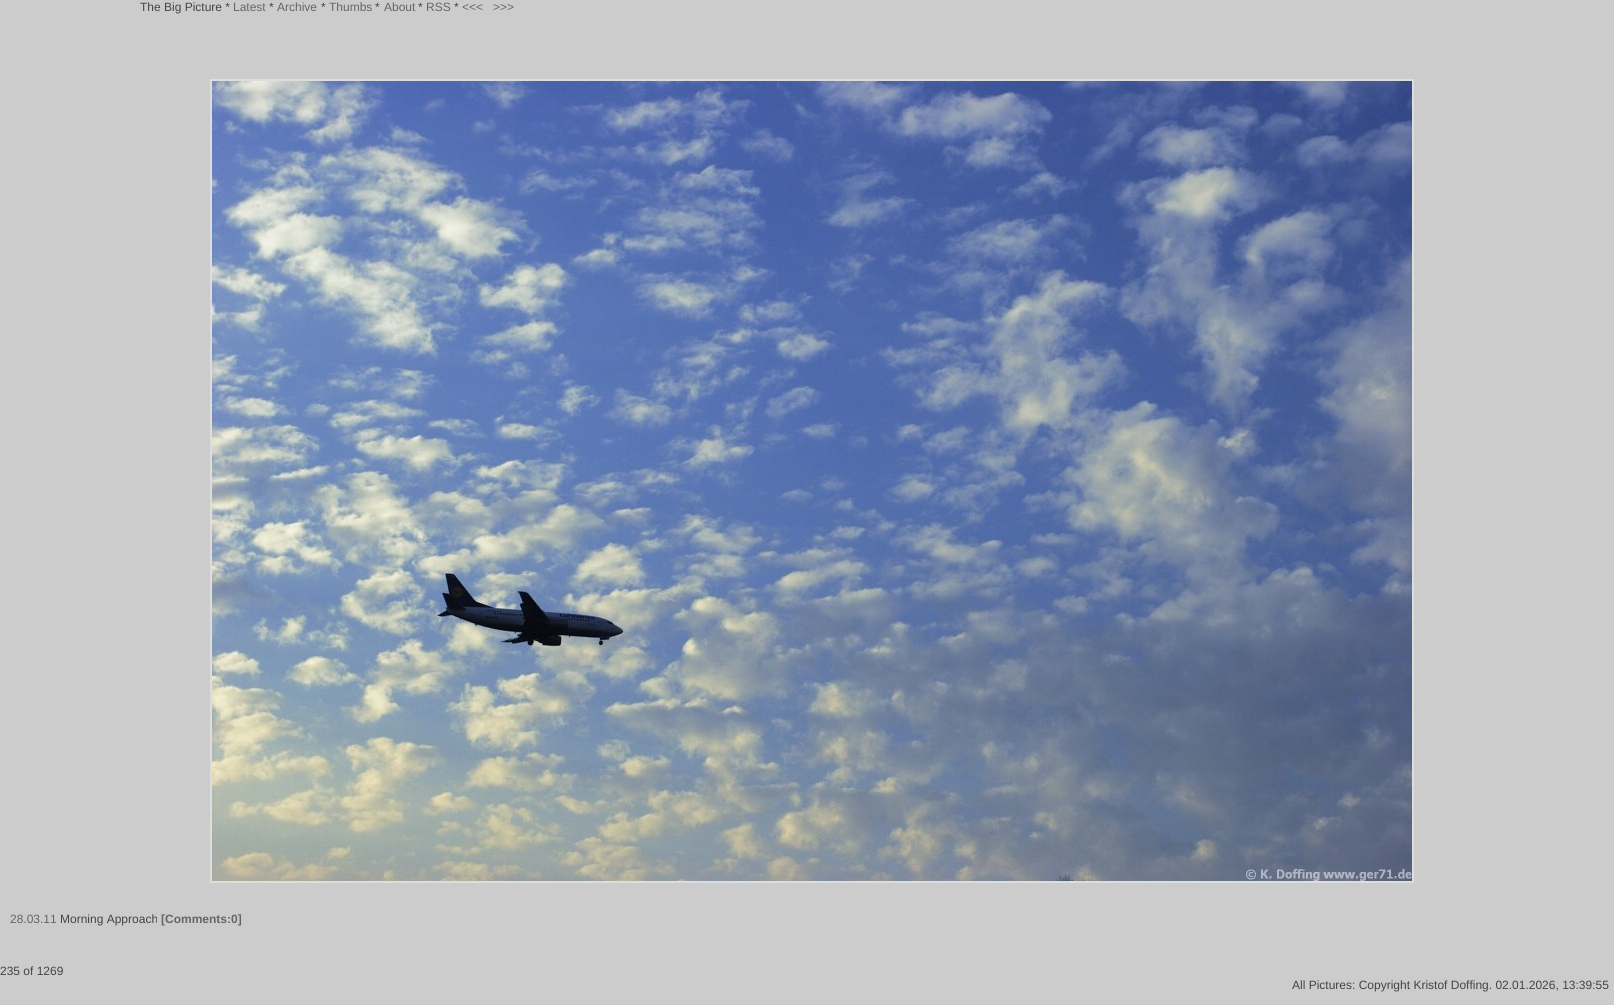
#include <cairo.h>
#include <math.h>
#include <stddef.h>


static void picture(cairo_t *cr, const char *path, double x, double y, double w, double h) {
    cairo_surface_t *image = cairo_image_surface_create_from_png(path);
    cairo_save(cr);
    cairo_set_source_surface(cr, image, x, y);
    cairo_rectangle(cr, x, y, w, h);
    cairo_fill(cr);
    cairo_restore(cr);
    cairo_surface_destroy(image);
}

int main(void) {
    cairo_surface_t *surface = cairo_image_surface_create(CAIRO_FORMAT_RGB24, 1614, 1005);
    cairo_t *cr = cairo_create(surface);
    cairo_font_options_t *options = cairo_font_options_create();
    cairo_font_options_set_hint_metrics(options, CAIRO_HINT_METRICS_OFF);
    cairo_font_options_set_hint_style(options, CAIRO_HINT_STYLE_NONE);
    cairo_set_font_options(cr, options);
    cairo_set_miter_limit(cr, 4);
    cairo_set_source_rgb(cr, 0.8, 0.8, 0.8);
    cairo_paint(cr);
    cairo_select_font_face(cr, "Liberation Sans", CAIRO_FONT_SLANT_NORMAL, CAIRO_FONT_WEIGHT_NORMAL);
    cairo_set_font_size(cr, 12);
    cairo_set_source_rgb(cr, 0.267, 0.267, 0.267);
    cairo_move_to(cr, 140, 11);
    cairo_show_text(cr, "The Big Picture *");
    cairo_set_source_rgb(cr, 0.4, 0.4, 0.4);
    cairo_move_to(cr, 233, 11);
    cairo_show_text(cr, "Latest");
    cairo_set_source_rgb(cr, 0.267, 0.267, 0.267);
    cairo_move_to(cr, 269, 11);
    cairo_show_text(cr, "*");
    cairo_set_source_rgb(cr, 0.4, 0.4, 0.4);
    cairo_move_to(cr, 277, 11);
    cairo_show_text(cr, "Archive");
    cairo_set_source_rgb(cr, 0.267, 0.267, 0.267);
    cairo_move_to(cr, 321, 11);
    cairo_show_text(cr, "*");
    cairo_set_source_rgb(cr, 0.4, 0.4, 0.4);
    cairo_move_to(cr, 329, 11);
    cairo_show_text(cr, "Thumbs");
    cairo_set_source_rgb(cr, 0.267, 0.267, 0.267);
    cairo_move_to(cr, 375, 11);
    cairo_show_text(cr, "*");
    cairo_set_source_rgb(cr, 0.4, 0.4, 0.4);
    cairo_move_to(cr, 384, 11);
    cairo_show_text(cr, "About");
    cairo_set_source_rgb(cr, 0.267, 0.267, 0.267);
    cairo_move_to(cr, 418, 11);
    cairo_show_text(cr, "*");
    cairo_set_source_rgb(cr, 0.4, 0.4, 0.4);
    cairo_move_to(cr, 426, 11);
    cairo_show_text(cr, "RSS");
    cairo_set_source_rgb(cr, 0.267, 0.267, 0.267);
    cairo_move_to(cr, 454, 11);
    cairo_show_text(cr, "*");
    cairo_set_source_rgb(cr, 0.4, 0.4, 0.4);
    cairo_move_to(cr, 462, 11);
    cairo_show_text(cr, "<<<");
    cairo_move_to(cr, 493, 11);
    cairo_show_text(cr, ">>>");
    cairo_rectangle(cr, 211, 80, 1202, 802);
    cairo_set_source_rgb(cr, 0.867, 0.867, 0.867);
    cairo_stroke(cr);
    picture(cr, "img1.png", 212, 81, 1200, 800);
    cairo_set_source_rgb(cr, 0.4, 0.4, 0.4);
    cairo_move_to(cr, 10, 923);
    cairo_show_text(cr, "28.03.11");
    cairo_set_source_rgb(cr, 0.267, 0.267, 0.267);
    cairo_move_to(cr, 60, 923);
    cairo_show_text(cr, "Morning Approach");
    cairo_select_font_face(cr, "Liberation Sans", CAIRO_FONT_SLANT_NORMAL, CAIRO_FONT_WEIGHT_BOLD);
    cairo_set_source_rgb(cr, 0.4, 0.4, 0.4);
    cairo_move_to(cr, 161, 923);
    cairo_show_text(cr, "[Comments:0]");
    cairo_select_font_face(cr, "Liberation Sans", CAIRO_FONT_SLANT_NORMAL, CAIRO_FONT_WEIGHT_NORMAL);
    cairo_set_source_rgb(cr, 0.267, 0.267, 0.267);
    cairo_move_to(cr, 0, 975);
    cairo_show_text(cr, "235 of 1269");
    cairo_move_to(cr, 1292, 989);
    cairo_show_text(cr, "All Pictures: Copyright Kristof Doffing. 02.01.2026, 13:39:55");
    cairo_surface_write_to_png(surface, "page.png");
    cairo_font_options_destroy(options);
    cairo_destroy(cr);
    cairo_surface_destroy(surface);
    return 0;
}
